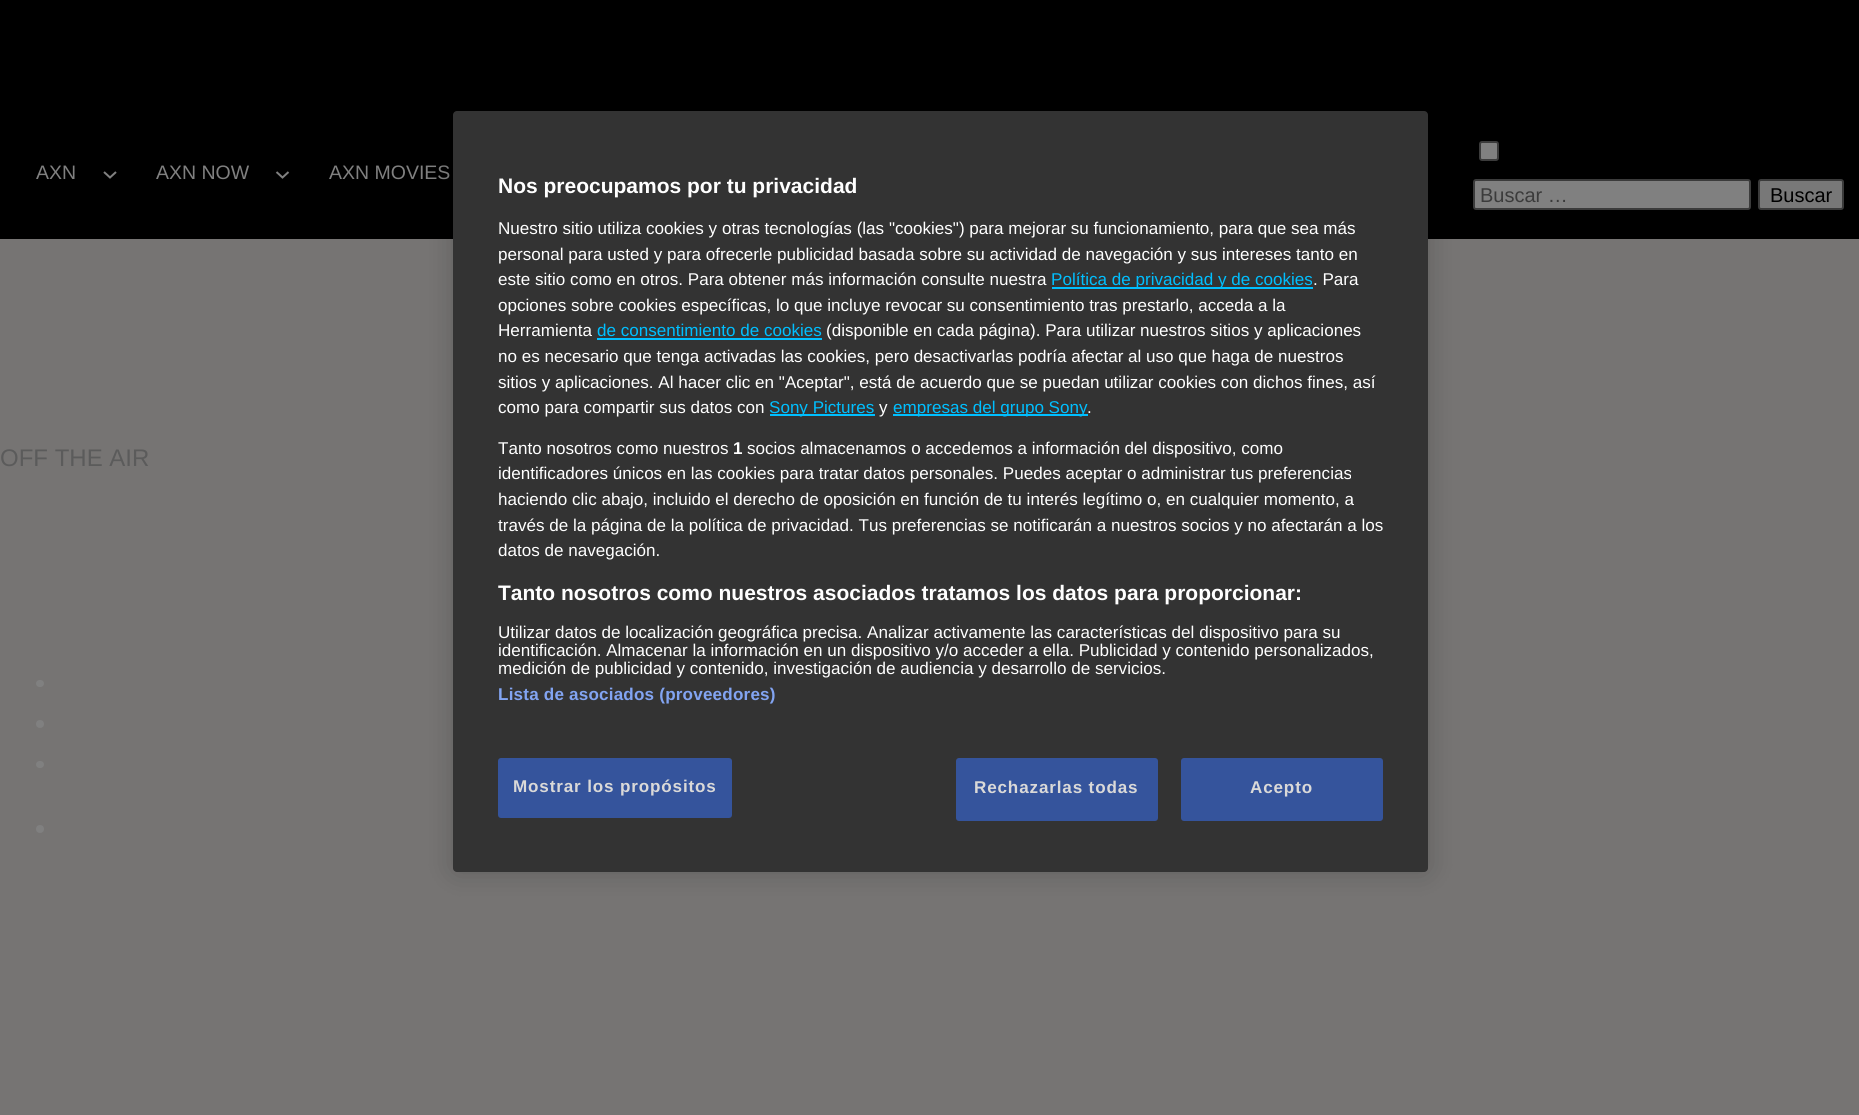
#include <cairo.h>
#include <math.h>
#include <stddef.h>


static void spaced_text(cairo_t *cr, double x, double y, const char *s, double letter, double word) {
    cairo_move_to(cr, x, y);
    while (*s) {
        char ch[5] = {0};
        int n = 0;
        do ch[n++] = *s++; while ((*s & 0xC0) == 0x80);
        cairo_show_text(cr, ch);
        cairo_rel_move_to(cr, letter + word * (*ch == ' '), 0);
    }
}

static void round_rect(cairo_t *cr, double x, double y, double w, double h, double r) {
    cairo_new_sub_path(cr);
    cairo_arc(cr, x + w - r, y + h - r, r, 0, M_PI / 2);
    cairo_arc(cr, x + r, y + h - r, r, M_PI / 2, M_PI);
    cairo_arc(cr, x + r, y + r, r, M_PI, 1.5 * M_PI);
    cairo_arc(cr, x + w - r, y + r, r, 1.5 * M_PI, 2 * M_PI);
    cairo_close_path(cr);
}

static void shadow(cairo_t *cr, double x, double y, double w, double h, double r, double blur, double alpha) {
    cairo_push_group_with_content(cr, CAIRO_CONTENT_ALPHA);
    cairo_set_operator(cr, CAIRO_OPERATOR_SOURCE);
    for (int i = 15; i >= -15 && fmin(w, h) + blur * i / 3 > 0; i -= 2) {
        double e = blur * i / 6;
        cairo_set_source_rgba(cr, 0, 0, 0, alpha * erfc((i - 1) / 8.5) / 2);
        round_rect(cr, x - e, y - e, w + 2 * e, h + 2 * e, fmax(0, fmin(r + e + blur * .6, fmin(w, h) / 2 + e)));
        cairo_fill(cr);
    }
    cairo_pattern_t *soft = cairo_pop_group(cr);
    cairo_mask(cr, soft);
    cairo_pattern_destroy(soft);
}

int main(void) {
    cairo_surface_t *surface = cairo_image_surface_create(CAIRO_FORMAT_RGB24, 1859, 1115);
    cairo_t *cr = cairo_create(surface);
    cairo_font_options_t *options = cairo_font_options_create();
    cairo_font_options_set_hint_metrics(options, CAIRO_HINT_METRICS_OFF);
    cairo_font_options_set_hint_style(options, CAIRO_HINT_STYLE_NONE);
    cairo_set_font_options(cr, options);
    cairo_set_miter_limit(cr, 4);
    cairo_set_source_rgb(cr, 0.463, 0.455, 0.451);
    cairo_paint(cr);
    cairo_set_source_rgb(cr, 0, 0, 0);
    cairo_rectangle(cr, 0, 0, 1859, 239);
    cairo_fill(cr);
    cairo_select_font_face(cr, "Liberation Sans", CAIRO_FONT_SLANT_NORMAL, CAIRO_FONT_WEIGHT_NORMAL);
    cairo_set_font_size(cr, 19.5);
    cairo_set_source_rgb(cr, 0.502, 0.502, 0.502);
    cairo_move_to(cr, 36, 179);
    cairo_show_text(cr, "AXN");
    cairo_new_path(cr);
    cairo_move_to(cr, 104, 172);
    cairo_line_to(cr, 110, 177.5);
    cairo_line_to(cr, 116, 172);
    cairo_stroke(cr);
    cairo_move_to(cr, 156, 179);
    cairo_show_text(cr, "AXN NOW");
    cairo_new_path(cr);
    cairo_move_to(cr, 276.5, 172);
    cairo_line_to(cr, 282.5, 177.5);
    cairo_line_to(cr, 288.5, 172);
    cairo_stroke(cr);
    cairo_move_to(cr, 329, 179);
    cairo_show_text(cr, "AXN MOVIES");
    round_rect(cr, 1480, 142, 18, 18, 2);
    cairo_fill_preserve(cr);
    cairo_set_source_rgb(cr, 0.231, 0.231, 0.231);
    cairo_stroke(cr);
    cairo_set_source_rgb(cr, 0.502, 0.502, 0.502);
    round_rect(cr, 1474, 180, 276, 29, 2);
    cairo_fill_preserve(cr);
    cairo_set_source_rgb(cr, 0.231, 0.231, 0.231);
    cairo_stroke(cr);
    cairo_set_font_size(cr, 20);
    cairo_move_to(cr, 1480, 202);
    cairo_show_text(cr, "Buscar …");
    cairo_set_source_rgb(cr, 0.471, 0.471, 0.471);
    round_rect(cr, 1759, 180, 84, 29, 2);
    cairo_fill_preserve(cr);
    cairo_set_source_rgb(cr, 0.231, 0.231, 0.231);
    cairo_stroke(cr);
    cairo_set_source_rgb(cr, 0, 0, 0);
    cairo_move_to(cr, 1770, 202);
    cairo_show_text(cr, "Buscar");
    cairo_set_font_size(cr, 24);
    cairo_set_source_rgb(cr, 0.357, 0.357, 0.357);
    cairo_move_to(cr, 0, 466);
    cairo_show_text(cr, "OFF THE AIR");
    cairo_set_source_rgb(cr, 0.502, 0.502, 0.502);
    round_rect(cr, 36, 680, 8, 7, 3.5);
    cairo_fill(cr);
    cairo_arc(cr, 40, 724, 4, 0, 2 * M_PI);
    cairo_fill(cr);
    round_rect(cr, 36, 761, 8, 7, 3.5);
    cairo_fill(cr);
    cairo_arc(cr, 40, 829, 4, 0, 2 * M_PI);
    cairo_fill(cr);
    cairo_set_source_rgb(cr, 0, 0, 0);
    shadow(cr, 453, 111, 975, 761, 4, 13.5, 0.2);
    cairo_set_source_rgb(cr, 0.2, 0.2, 0.2);
    round_rect(cr, 453, 111, 975, 761, 4);
    cairo_fill(cr);
    cairo_select_font_face(cr, "Liberation Sans", CAIRO_FONT_SLANT_NORMAL, CAIRO_FONT_WEIGHT_BOLD);
    cairo_set_font_size(cr, 21);
    cairo_set_source_rgb(cr, 1, 1, 1);
    cairo_move_to(cr, 498, 193);
    cairo_show_text(cr, "Nos preocupamos por tu privacidad");
    cairo_select_font_face(cr, "Liberation Sans", CAIRO_FONT_SLANT_NORMAL, CAIRO_FONT_WEIGHT_NORMAL);
    cairo_set_font_size(cr, 17.07);
    cairo_move_to(cr, 498, 234);
    cairo_show_text(cr, "Nuestro sitio utiliza cookies y otras tecnologías (las \"cookies\") para mejorar su funcionamiento, para que sea más");
    cairo_move_to(cr, 498, 260);
    cairo_show_text(cr, "personal para usted y para ofrecerle publicidad basada sobre su actividad de navegación y sus intereses tanto en");
    cairo_move_to(cr, 498, 285);
    cairo_show_text(cr, "este sitio como en otros. Para obtener más información consulte nuestra");
    cairo_set_source_rgb(cr, 0, 0.749, 1);
    cairo_rectangle(cr, 1052, 287, 261, 2);
    cairo_fill(cr);
    cairo_move_to(cr, 1051, 285);
    cairo_show_text(cr, "Política de privacidad y de cookies");
    cairo_set_source_rgb(cr, 1, 1, 1);
    cairo_move_to(cr, 1313, 285);
    cairo_show_text(cr, ". Para");
    cairo_move_to(cr, 498, 311);
    cairo_show_text(cr, "opciones sobre cookies específicas, lo que incluye revocar su consentimiento tras prestarlo, acceda a la");
    cairo_move_to(cr, 498, 336);
    cairo_show_text(cr, "Herramienta");
    cairo_set_source_rgb(cr, 0, 0.749, 1);
    cairo_move_to(cr, 597, 336);
    cairo_show_text(cr, "de consentimiento de cookies");
    cairo_rectangle(cr, 597, 338, 225, 2);
    cairo_fill(cr);
    cairo_set_source_rgb(cr, 1, 1, 1);
    cairo_move_to(cr, 826, 336);
    cairo_show_text(cr, "(disponible en cada página). Para utilizar nuestros sitios y aplicaciones");
    cairo_move_to(cr, 498, 362);
    cairo_show_text(cr, "no es necesario que tenga activadas las cookies, pero desactivarlas podría afectar al uso que haga de nuestros");
    cairo_move_to(cr, 498, 388);
    cairo_show_text(cr, "sitios y aplicaciones. Al hacer clic en \"Aceptar\", está de acuerdo que se puedan utilizar cookies con dichos fines, así");
    cairo_move_to(cr, 498, 413);
    cairo_show_text(cr, "como para compartir sus datos con");
    cairo_set_source_rgb(cr, 0, 0.749, 1);
    cairo_rectangle(cr, 770, 414, 105, 2);
    cairo_fill(cr);
    cairo_move_to(cr, 769, 413);
    cairo_show_text(cr, "Sony Pictures");
    cairo_set_source_rgb(cr, 1, 1, 1);
    cairo_move_to(cr, 879, 413);
    cairo_show_text(cr, "y");
    cairo_set_source_rgb(cr, 0, 0.749, 1);
    cairo_rectangle(cr, 893, 414, 195, 2);
    cairo_fill(cr);
    cairo_move_to(cr, 893, 413);
    cairo_show_text(cr, "empresas del grupo Sony");
    cairo_set_source_rgb(cr, 1, 1, 1);
    cairo_move_to(cr, 1087, 413);
    cairo_show_text(cr, ".");
    cairo_move_to(cr, 498, 454);
    cairo_show_text(cr, "Tanto nosotros como nuestros");
    cairo_select_font_face(cr, "Liberation Sans", CAIRO_FONT_SLANT_NORMAL, CAIRO_FONT_WEIGHT_BOLD);
    cairo_move_to(cr, 733, 454);
    cairo_show_text(cr, "1");
    cairo_select_font_face(cr, "Liberation Sans", CAIRO_FONT_SLANT_NORMAL, CAIRO_FONT_WEIGHT_NORMAL);
    cairo_move_to(cr, 747, 454);
    cairo_show_text(cr, "socios almacenamos o accedemos a información del dispositivo, como");
    cairo_move_to(cr, 498, 479);
    cairo_show_text(cr, "identificadores únicos en las cookies para tratar datos personales. Puedes aceptar o administrar tus preferencias");
    cairo_move_to(cr, 498, 505);
    cairo_show_text(cr, "haciendo clic abajo, incluido el derecho de oposición en función de tu interés legítimo o, en cualquier momento, a");
    cairo_move_to(cr, 498, 531);
    cairo_show_text(cr, "través de la página de la política de privacidad. Tus preferencias se notificarán a nuestros socios y no afectarán a los");
    cairo_move_to(cr, 498, 556);
    cairo_show_text(cr, "datos de navegación.");
    cairo_select_font_face(cr, "Liberation Sans", CAIRO_FONT_SLANT_NORMAL, CAIRO_FONT_WEIGHT_BOLD);
    cairo_set_font_size(cr, 21);
    cairo_move_to(cr, 498, 600);
    cairo_show_text(cr, "Tanto nosotros como nuestros asociados tratamos los datos para proporcionar:");
    cairo_select_font_face(cr, "Liberation Sans", CAIRO_FONT_SLANT_NORMAL, CAIRO_FONT_WEIGHT_NORMAL);
    cairo_set_font_size(cr, 17.07);
    cairo_move_to(cr, 498, 638);
    cairo_show_text(cr, "Utilizar datos de localización geográfica precisa. Analizar activamente las características del dispositivo para su");
    cairo_move_to(cr, 498, 656);
    cairo_show_text(cr, "identificación. Almacenar la información en un dispositivo y/o acceder a ella. Publicidad y contenido personalizados,");
    cairo_move_to(cr, 498, 674);
    cairo_show_text(cr, "medición de publicidad y contenido, investigación de audiencia y desarrollo de servicios.");
    cairo_select_font_face(cr, "Liberation Sans", CAIRO_FONT_SLANT_NORMAL, CAIRO_FONT_WEIGHT_BOLD);
    cairo_set_source_rgb(cr, 0.51, 0.643, 0.949);
    spaced_text(cr, 498, 700, "Lista de asociados (proveedores)", 0.2, 0);
    cairo_set_source_rgb(cr, 0.208, 0.329, 0.612);
    round_rect(cr, 498, 758, 234, 60, 3);
    cairo_fill(cr);
    cairo_set_source_rgb(cr, 0.855, 0.851, 0.847);
    spaced_text(cr, 513, 792, "Mostrar los propósitos", 0.85, 0);
    cairo_set_source_rgb(cr, 0.208, 0.329, 0.612);
    round_rect(cr, 957, 759, 200, 61, 2);
    cairo_fill_preserve(cr);
    cairo_stroke(cr);
    cairo_set_source_rgb(cr, 0.855, 0.851, 0.847);
    spaced_text(cr, 974, 793, "Rechazarlas todas", 0.85, 0);
    cairo_set_source_rgb(cr, 0.208, 0.329, 0.612);
    round_rect(cr, 1182, 759, 200, 61, 2);
    cairo_fill_preserve(cr);
    cairo_stroke(cr);
    cairo_set_source_rgb(cr, 0.855, 0.851, 0.847);
    spaced_text(cr, 1250, 793, "Acepto", 0.85, 0);
    cairo_surface_write_to_png(surface, "page.png");
    cairo_font_options_destroy(options);
    cairo_destroy(cr);
    cairo_surface_destroy(surface);
    return 0;
}
